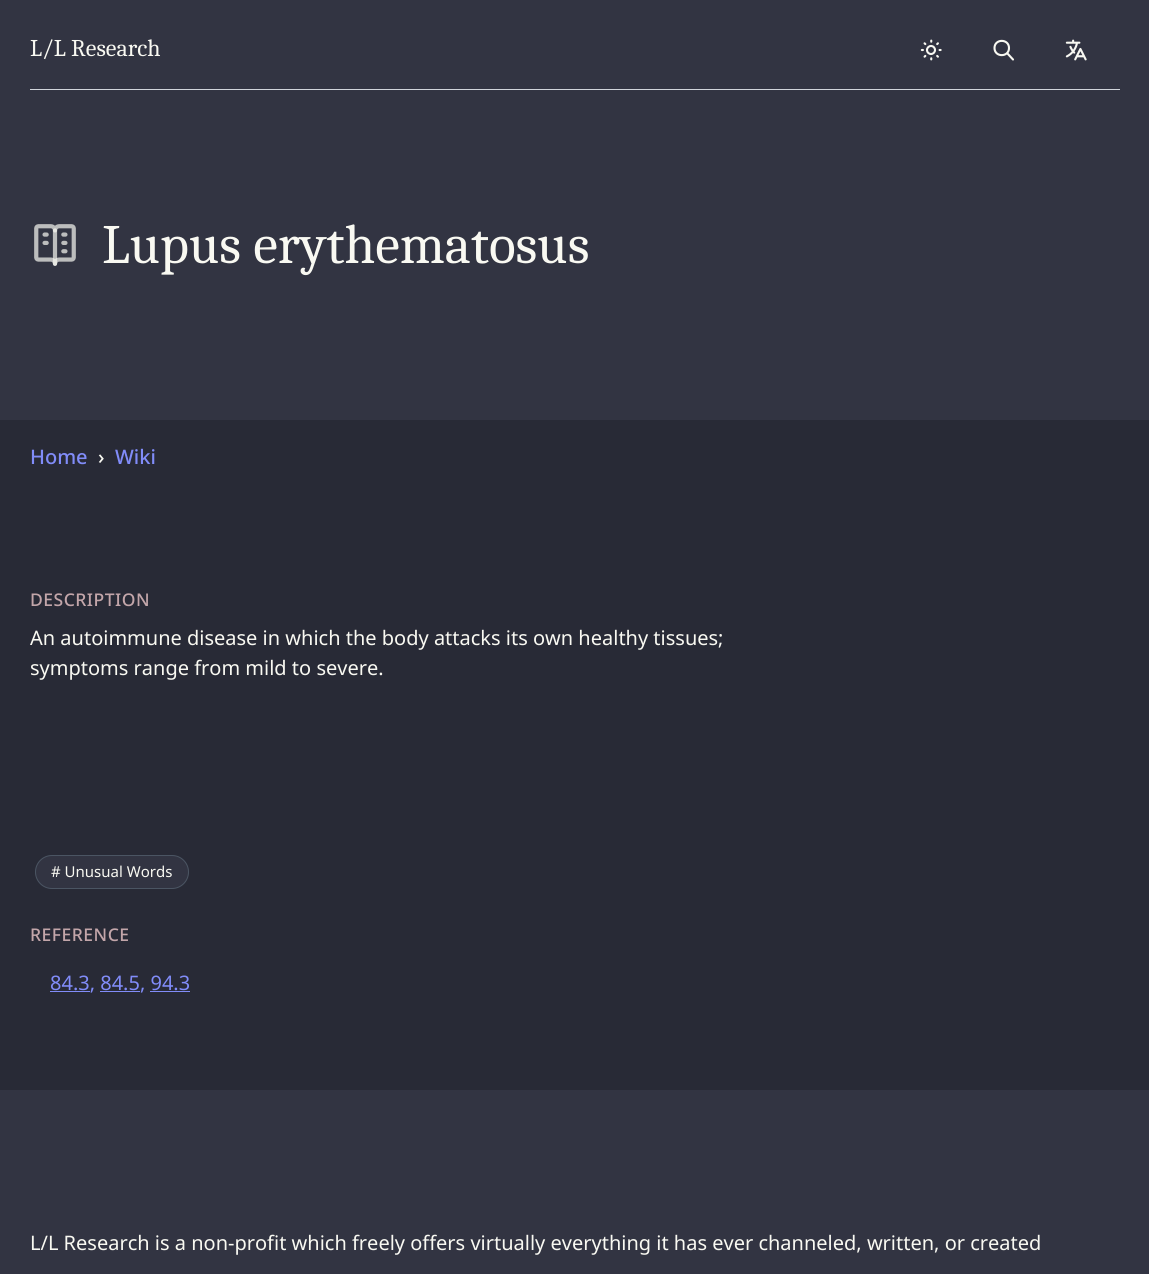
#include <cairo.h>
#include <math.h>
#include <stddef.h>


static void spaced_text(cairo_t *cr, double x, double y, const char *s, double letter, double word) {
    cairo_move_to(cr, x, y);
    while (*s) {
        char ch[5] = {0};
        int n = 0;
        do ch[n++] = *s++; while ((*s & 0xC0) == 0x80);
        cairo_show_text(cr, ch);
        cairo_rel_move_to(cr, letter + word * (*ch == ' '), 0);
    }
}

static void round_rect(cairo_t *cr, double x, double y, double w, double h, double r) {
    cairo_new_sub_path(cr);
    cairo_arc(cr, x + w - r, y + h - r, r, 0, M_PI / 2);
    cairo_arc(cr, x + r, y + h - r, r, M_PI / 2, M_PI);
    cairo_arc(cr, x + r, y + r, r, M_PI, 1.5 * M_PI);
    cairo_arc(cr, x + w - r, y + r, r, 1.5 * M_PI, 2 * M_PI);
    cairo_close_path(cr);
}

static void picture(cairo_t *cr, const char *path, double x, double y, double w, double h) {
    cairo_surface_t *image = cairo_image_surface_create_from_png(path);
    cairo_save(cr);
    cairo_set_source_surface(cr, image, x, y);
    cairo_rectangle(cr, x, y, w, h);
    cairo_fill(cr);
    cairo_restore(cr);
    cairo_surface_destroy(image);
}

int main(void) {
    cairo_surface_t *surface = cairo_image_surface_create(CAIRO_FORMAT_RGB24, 1149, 1274);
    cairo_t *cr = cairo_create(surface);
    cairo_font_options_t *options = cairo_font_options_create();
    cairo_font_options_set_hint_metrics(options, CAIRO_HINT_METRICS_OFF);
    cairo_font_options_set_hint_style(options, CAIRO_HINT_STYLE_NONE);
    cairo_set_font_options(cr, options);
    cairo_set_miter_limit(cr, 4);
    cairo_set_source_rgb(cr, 0.157, 0.165, 0.212);
    cairo_paint(cr);
    cairo_set_source_rgb(cr, 0.196, 0.204, 0.259);
    cairo_rectangle(cr, 0, 0, 1149, 420);
    cairo_fill(cr);
    cairo_set_source_rgb(cr, 0.82, 0.835, 0.859);
    cairo_rectangle(cr, 30, 89, 1090, 1);
    cairo_fill(cr);
    cairo_select_font_face(cr, "Caladea", CAIRO_FONT_SLANT_NORMAL, CAIRO_FONT_WEIGHT_NORMAL);
    cairo_set_font_size(cr, 24);
    cairo_set_source_rgb(cr, 0.973, 0.973, 0.949);
    cairo_move_to(cr, 30, 56);
    cairo_show_text(cr, "L/L Research");
    picture(cr, "img1.png", 920, 39, 22, 22);
    cairo_new_path(cr);
    cairo_move_to(cr, 1013, 59.5);
    cairo_line_to(cr, 1007, 53);
    cairo_move_to(cr, 1009, 48);
    cairo_curve_to(cr, 1009, 57.5, 994.5, 57.5, 994.5, 48);
    cairo_curve_to(cr, 994.5, 38.5, 1009, 38.5, 1009, 48);
    cairo_close_path(cr);
    cairo_set_line_width(cr, 2.1);
    cairo_set_line_cap(cr, CAIRO_LINE_CAP_ROUND);
    cairo_set_line_join(cr, CAIRO_LINE_JOIN_ROUND);
    cairo_stroke(cr);
    picture(cr, "img2.png", 1065, 39, 22, 22);
    picture(cr, "img3.png", 34, 224, 42, 42);
    cairo_set_font_size(cr, 55.5);
    cairo_move_to(cr, 102, 263);
    cairo_show_text(cr, "Lupus erythematosus");
    cairo_select_font_face(cr, "Noto Sans Medium", CAIRO_FONT_SLANT_NORMAL, CAIRO_FONT_WEIGHT_NORMAL);
    cairo_set_font_size(cr, 20);
    cairo_set_source_rgb(cr, 0.506, 0.549, 0.973);
    cairo_move_to(cr, 30, 464);
    cairo_show_text(cr, "Home");
    cairo_set_source_rgb(cr, 0.973, 0.973, 0.949);
    cairo_move_to(cr, 98, 464);
    cairo_show_text(cr, "›");
    cairo_set_source_rgb(cr, 0.506, 0.549, 0.973);
    cairo_move_to(cr, 115, 464);
    cairo_show_text(cr, "Wiki");
    cairo_set_font_size(cr, 17.5);
    cairo_set_source_rgb(cr, 0.765, 0.651, 0.667);
    spaced_text(cr, 30, 606, "DESCRIPTION", 0.5, 0);
    cairo_select_font_face(cr, "Noto Sans", CAIRO_FONT_SLANT_NORMAL, CAIRO_FONT_WEIGHT_NORMAL);
    cairo_set_font_size(cr, 20);
    cairo_set_source_rgb(cr, 0.973, 0.973, 0.949);
    cairo_move_to(cr, 30, 645);
    cairo_show_text(cr, "An autoimmune disease in which the body attacks its own healthy tissues;");
    cairo_move_to(cr, 30, 675);
    cairo_show_text(cr, "symptoms range from mild to severe.");
    cairo_set_source_rgb(cr, 0.196, 0.204, 0.259);
    round_rect(cr, 35.5, 855.5, 153, 33, 16.5);
    cairo_fill_preserve(cr);
    cairo_set_source_rgb(cr, 0.294, 0.333, 0.388);
    cairo_set_line_width(cr, 1);
    cairo_set_line_cap(cr, CAIRO_LINE_CAP_BUTT);
    cairo_set_line_join(cr, CAIRO_LINE_JOIN_MITER);
    cairo_stroke(cr);
    cairo_set_font_size(cr, 15);
    cairo_set_source_rgb(cr, 0.973, 0.973, 0.949);
    cairo_move_to(cr, 51, 877);
    cairo_show_text(cr, "# Unusual Words");
    cairo_select_font_face(cr, "Noto Sans Medium", CAIRO_FONT_SLANT_NORMAL, CAIRO_FONT_WEIGHT_NORMAL);
    cairo_set_font_size(cr, 17.5);
    cairo_set_source_rgb(cr, 0.765, 0.651, 0.667);
    spaced_text(cr, 30, 941, "REFERENCE", 0.5, 0);
    cairo_set_source_rgb(cr, 0.506, 0.549, 0.973);
    cairo_rectangle(cr, 50, 991, 40, 1);
    cairo_fill(cr);
    cairo_select_font_face(cr, "Noto Sans", CAIRO_FONT_SLANT_NORMAL, CAIRO_FONT_WEIGHT_NORMAL);
    cairo_set_font_size(cr, 20);
    cairo_move_to(cr, 50, 990);
    cairo_show_text(cr, "84.3, 84.5, 94.3");
    cairo_rectangle(cr, 100, 991, 40, 1);
    cairo_fill(cr);
    cairo_rectangle(cr, 150, 991, 40, 1);
    cairo_fill(cr);
    cairo_set_source_rgb(cr, 0.196, 0.204, 0.259);
    cairo_rectangle(cr, 0, 1090, 1149, 184);
    cairo_fill(cr);
    cairo_set_source_rgb(cr, 0.973, 0.973, 0.949);
    cairo_move_to(cr, 30, 1250);
    cairo_show_text(cr, "L/L Research is a non-profit which freely offers virtually everything it has ever channeled, written, or created");
    cairo_surface_write_to_png(surface, "page.png");
    cairo_font_options_destroy(options);
    cairo_destroy(cr);
    cairo_surface_destroy(surface);
    return 0;
}
